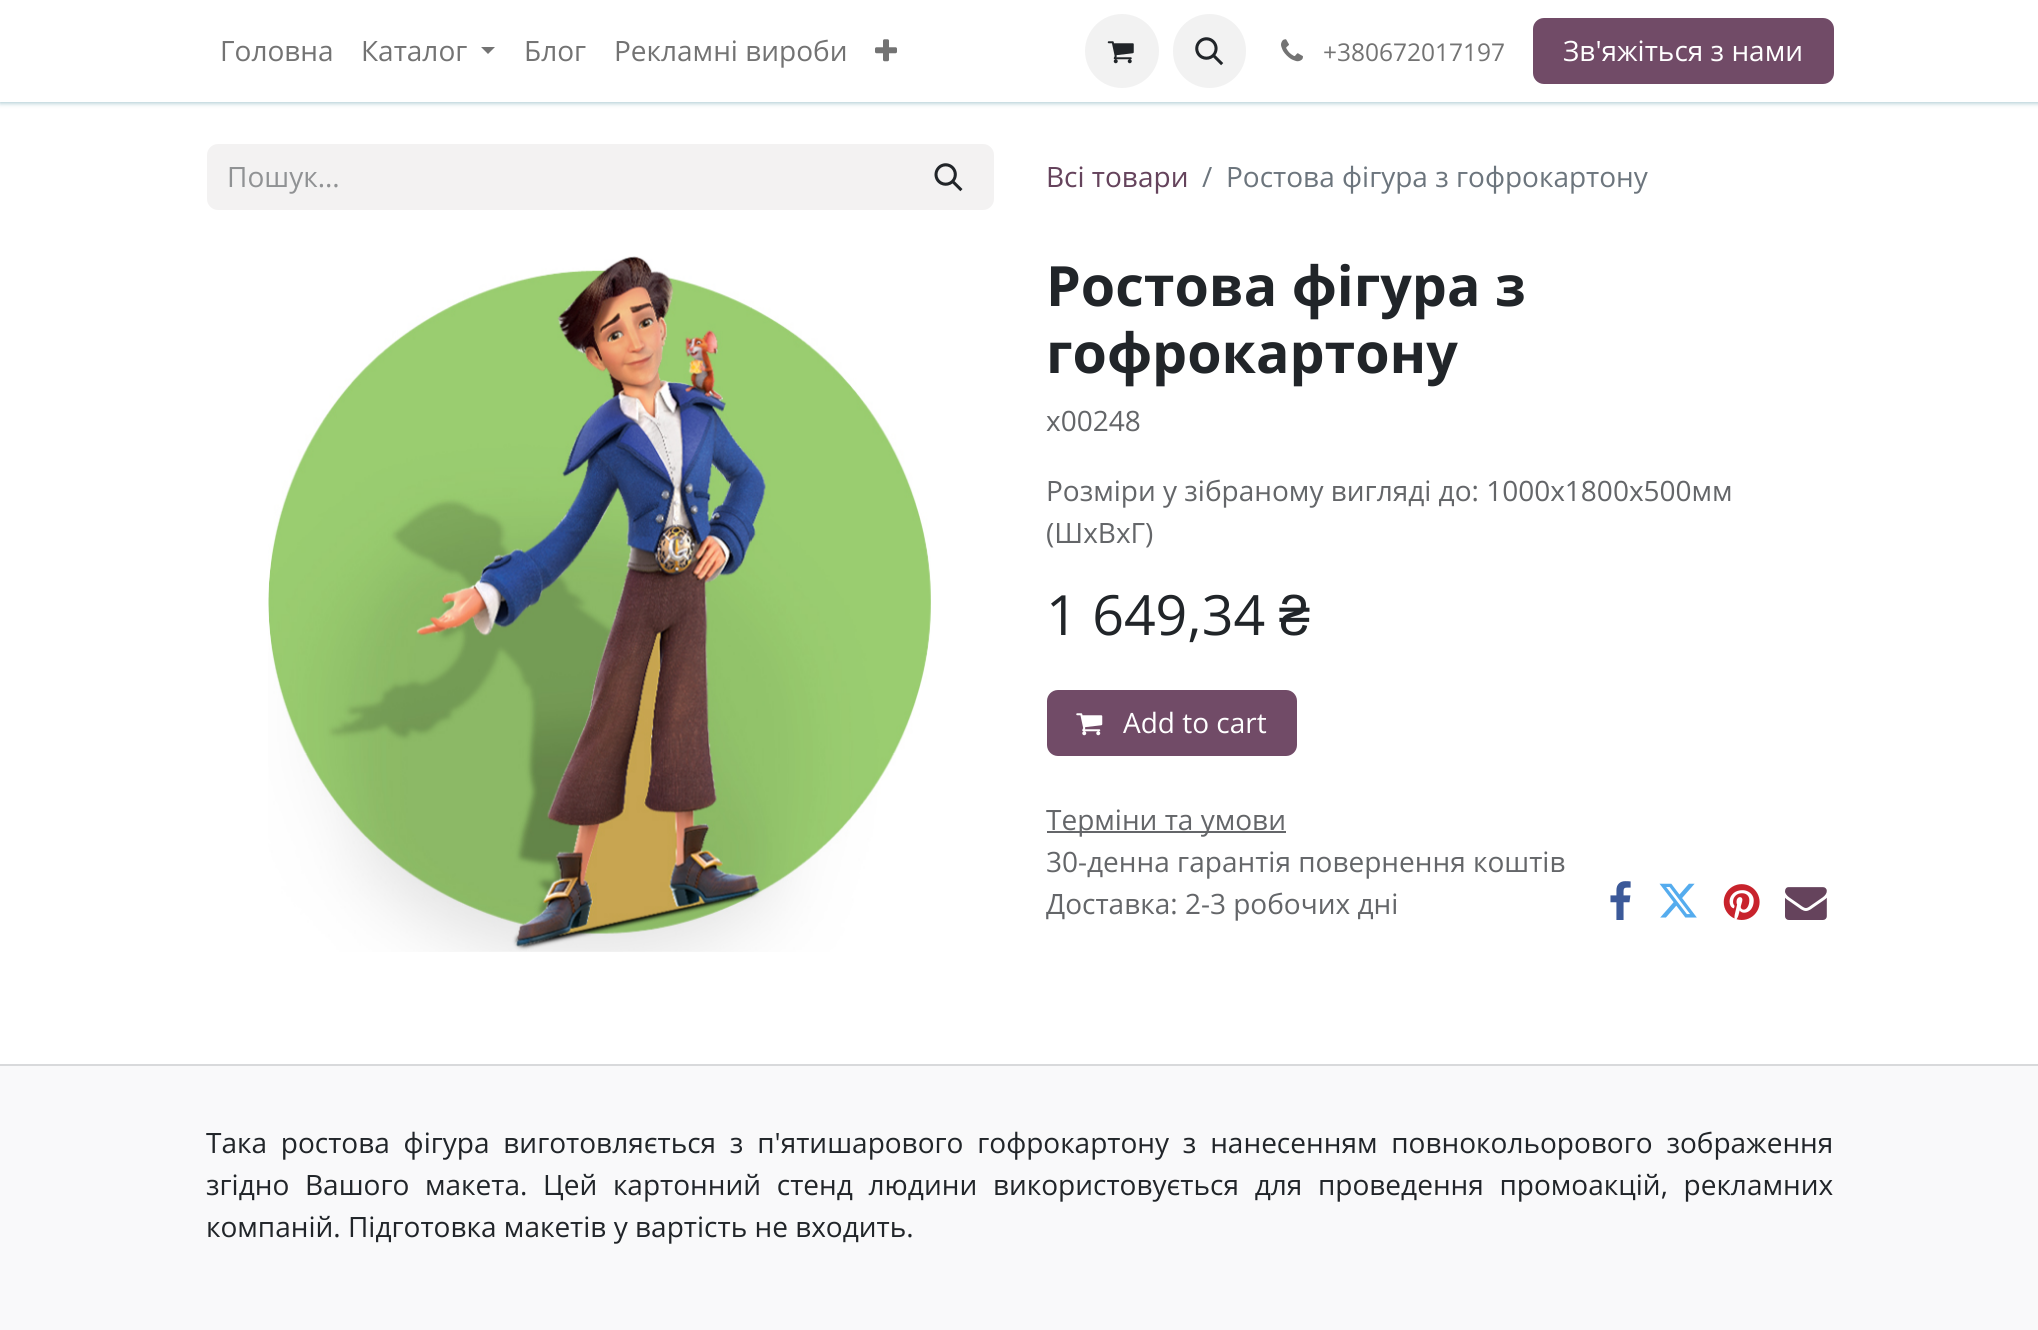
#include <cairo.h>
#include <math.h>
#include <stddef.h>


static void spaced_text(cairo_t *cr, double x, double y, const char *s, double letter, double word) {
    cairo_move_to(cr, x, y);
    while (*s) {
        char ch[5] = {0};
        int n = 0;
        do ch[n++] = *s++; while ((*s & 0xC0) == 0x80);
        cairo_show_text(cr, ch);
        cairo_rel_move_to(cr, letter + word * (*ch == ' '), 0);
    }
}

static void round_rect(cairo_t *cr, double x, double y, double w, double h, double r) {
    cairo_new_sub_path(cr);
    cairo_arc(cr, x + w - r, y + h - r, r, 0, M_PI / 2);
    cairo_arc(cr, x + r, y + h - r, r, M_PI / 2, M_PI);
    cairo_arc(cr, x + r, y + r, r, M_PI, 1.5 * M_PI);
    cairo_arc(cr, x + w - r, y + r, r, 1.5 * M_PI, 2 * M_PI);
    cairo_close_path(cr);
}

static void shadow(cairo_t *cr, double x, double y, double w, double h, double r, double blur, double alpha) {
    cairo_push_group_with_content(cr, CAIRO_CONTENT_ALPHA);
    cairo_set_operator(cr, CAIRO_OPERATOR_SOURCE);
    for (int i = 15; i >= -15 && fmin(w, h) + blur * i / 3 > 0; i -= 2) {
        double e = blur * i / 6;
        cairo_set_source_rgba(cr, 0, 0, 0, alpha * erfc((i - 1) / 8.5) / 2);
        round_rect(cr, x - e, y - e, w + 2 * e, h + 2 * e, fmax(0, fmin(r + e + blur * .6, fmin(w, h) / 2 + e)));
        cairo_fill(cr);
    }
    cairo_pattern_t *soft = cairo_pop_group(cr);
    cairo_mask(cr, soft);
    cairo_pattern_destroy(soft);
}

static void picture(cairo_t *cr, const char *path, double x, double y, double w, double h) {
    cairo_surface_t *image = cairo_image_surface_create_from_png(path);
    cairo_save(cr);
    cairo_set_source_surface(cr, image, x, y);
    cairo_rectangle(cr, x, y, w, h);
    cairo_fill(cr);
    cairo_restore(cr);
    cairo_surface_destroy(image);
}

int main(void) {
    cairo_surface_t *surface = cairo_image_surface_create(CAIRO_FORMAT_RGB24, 2038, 1330);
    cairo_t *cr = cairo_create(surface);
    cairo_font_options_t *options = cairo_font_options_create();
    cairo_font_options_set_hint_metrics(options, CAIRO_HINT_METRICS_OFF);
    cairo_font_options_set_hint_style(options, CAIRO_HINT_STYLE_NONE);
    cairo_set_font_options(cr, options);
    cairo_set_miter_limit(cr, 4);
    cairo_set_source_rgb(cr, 1, 1, 1);
    cairo_paint(cr);
    cairo_set_source_rgb(cr, 0.647, 0.776, 0.808);
    shadow(cr, 0, 2, 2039, 101, 0, 2.5, 1);
    cairo_set_source_rgb(cr, 1, 1, 1);
    cairo_rectangle(cr, 0, 0, 2038, 102);
    cairo_fill(cr);
    cairo_select_font_face(cr, "Open Sans", CAIRO_FONT_SLANT_NORMAL, CAIRO_FONT_WEIGHT_NORMAL);
    cairo_set_font_size(cr, 28);
    cairo_set_source_rgb(cr, 0.451, 0.451, 0.451);
    cairo_move_to(cr, 220, 61);
    cairo_show_text(cr, "Головна");
    cairo_move_to(cr, 361, 61);
    cairo_show_text(cr, "Каталог");
    cairo_new_path(cr);
    cairo_move_to(cr, 481, 47);
    cairo_line_to(cr, 495, 47);
    cairo_line_to(cr, 488, 54);
    cairo_close_path(cr);
    cairo_fill(cr);
    cairo_move_to(cr, 524, 61);
    cairo_show_text(cr, "Блог");
    cairo_move_to(cr, 614, 61);
    cairo_show_text(cr, "Рекламні вироби");
    picture(cr, "img1.png", 875, 39, 22, 23);
    cairo_set_source_rgb(cr, 0.949, 0.949, 0.949);
    cairo_arc(cr, 1122, 51, 37, 0, 2 * M_PI);
    cairo_fill(cr);
    picture(cr, "img2.png", 1107, 41, 27, 23);
    round_rect(cr, 1173, 14, 73, 74, 36.5);
    cairo_fill(cr);
    picture(cr, "img3.png", 1195, 37, 29, 29);
    picture(cr, "img4.png", 1281, 39, 22, 23);
    cairo_set_font_size(cr, 24.5);
    cairo_set_source_rgb(cr, 0.451, 0.451, 0.451);
    cairo_move_to(cr, 1323, 61);
    cairo_show_text(cr, "+380672017197");
    cairo_set_source_rgb(cr, 0.443, 0.294, 0.404);
    round_rect(cr, 1534, 19, 299, 64, 10);
    cairo_fill_preserve(cr);
    cairo_stroke(cr);
    cairo_set_font_size(cr, 28);
    cairo_set_source_rgb(cr, 1, 1, 1);
    cairo_move_to(cr, 1563, 61);
    cairo_show_text(cr, "Зв'яжіться з нами");
    cairo_set_source_rgb(cr, 0.953, 0.949, 0.949);
    cairo_new_path(cr);
    cairo_move_to(cr, 218, 144);
    cairo_line_to(cr, 907, 144);
    cairo_line_to(cr, 907, 210);
    cairo_line_to(cr, 218, 210);
    cairo_curve_to(cr, 212, 210, 207, 205, 207, 199);
    cairo_line_to(cr, 207, 155);
    cairo_curve_to(cr, 207, 149, 212, 144, 218, 144);
    cairo_close_path(cr);
    cairo_fill(cr);
    cairo_set_source_rgb(cr, 0.565, 0.573, 0.58);
    cairo_move_to(cr, 227, 187);
    cairo_show_text(cr, "Пошук...");
    cairo_set_source_rgb(cr, 0.953, 0.949, 0.949);
    cairo_new_path(cr);
    cairo_move_to(cr, 906, 145);
    cairo_line_to(cr, 983, 145);
    cairo_curve_to(cr, 988.5, 145, 993, 149.5, 993, 155);
    cairo_line_to(cr, 993, 199);
    cairo_curve_to(cr, 993, 204.5, 988.5, 209, 983, 209);
    cairo_line_to(cr, 906, 209);
    cairo_close_path(cr);
    cairo_fill_preserve(cr);
    cairo_stroke(cr);
    picture(cr, "img5.png", 934, 163, 29, 29);
    cairo_set_source_rgb(cr, 0.396, 0.263, 0.361);
    cairo_move_to(cr, 1046, 187);
    cairo_show_text(cr, "Всі товари");
    cairo_set_source_rgb(cr, 0.424, 0.459, 0.49);
    cairo_move_to(cr, 1202, 187);
    cairo_show_text(cr, "/");
    cairo_move_to(cr, 1226, 187);
    cairo_show_text(cr, "Ростова фігура з гофрокартону");
    picture(cr, "img6.png", 268, 256, 663, 696);
    cairo_select_font_face(cr, "Open Sans", CAIRO_FONT_SLANT_NORMAL, CAIRO_FONT_WEIGHT_BOLD);
    cairo_set_font_size(cr, 55.5);
    cairo_set_source_rgb(cr, 0.129, 0.145, 0.161);
    cairo_move_to(cr, 1046, 306);
    cairo_show_text(cr, "Ростова фігура з");
    cairo_move_to(cr, 1046, 373);
    cairo_show_text(cr, "гофрокартону");
    cairo_select_font_face(cr, "Open Sans", CAIRO_FONT_SLANT_NORMAL, CAIRO_FONT_WEIGHT_NORMAL);
    cairo_set_font_size(cr, 28);
    cairo_set_source_rgb(cr, 0.392, 0.4, 0.412);
    cairo_move_to(cr, 1046, 431);
    cairo_show_text(cr, "x00248");
    cairo_move_to(cr, 1046, 501);
    cairo_show_text(cr, "Розміри у зібраному вигляді до: 1000х1800х500мм");
    cairo_move_to(cr, 1046, 543);
    cairo_show_text(cr, "(ШхВхГ)");
    cairo_set_font_size(cr, 55.5);
    cairo_set_source_rgb(cr, 0.129, 0.145, 0.161);
    cairo_move_to(cr, 1046, 635);
    cairo_show_text(cr, "1 649,34");
    cairo_select_font_face(cr, "Liberation Sans", CAIRO_FONT_SLANT_NORMAL, CAIRO_FONT_WEIGHT_NORMAL);
    cairo_move_to(cr, 1279, 635);
    cairo_show_text(cr, "₴");
    cairo_set_source_rgb(cr, 0.443, 0.294, 0.404);
    round_rect(cr, 1048, 691, 248, 64, 10);
    cairo_fill_preserve(cr);
    cairo_stroke(cr);
    picture(cr, "img7.png", 1076, 713, 27, 23);
    cairo_select_font_face(cr, "Open Sans", CAIRO_FONT_SLANT_NORMAL, CAIRO_FONT_WEIGHT_NORMAL);
    cairo_set_font_size(cr, 28);
    cairo_set_source_rgb(cr, 1, 1, 1);
    cairo_move_to(cr, 1123, 733);
    cairo_show_text(cr, "Add to cart");
    cairo_set_source_rgb(cr, 0.392, 0.4, 0.412);
    cairo_rectangle(cr, 1047, 831, 239, 2);
    cairo_fill(cr);
    cairo_move_to(cr, 1046, 830);
    cairo_show_text(cr, "Терміни та умови");
    cairo_move_to(cr, 1046, 872);
    cairo_show_text(cr, "30-денна гарантія повернення коштів");
    cairo_move_to(cr, 1046, 914);
    cairo_show_text(cr, "Доставка: 2-3 робочих дні");
    picture(cr, "img8.png", 1610, 881, 21, 39);
    picture(cr, "img9.png", 1659, 883, 38, 35);
    picture(cr, "img10.png", 1723, 884, 37, 36);
    picture(cr, "img11.png", 1785, 887, 42, 33);
    cairo_set_source_rgb(cr, 0.973, 0.976, 0.98);
    cairo_rectangle(cr, 0, 1066, 2038, 264);
    cairo_fill(cr);
    cairo_set_source_rgb(cr, 0.847, 0.851, 0.859);
    cairo_rectangle(cr, 0, 1064, 2038, 2);
    cairo_fill(cr);
    cairo_set_source_rgb(cr, 0.129, 0.145, 0.161);
    spaced_text(cr, 206, 1153, "Така ростова фігура виготовляється з п'ятишарового гофрокартону з нанесенням повнокольорового зображення", 0, 6.5);
    spaced_text(cr, 206, 1195, "згідно Вашого макета. Цей картонний стенд людини використовується для проведення промоакцій, рекламних", 0, 8.4);
    cairo_move_to(cr, 206, 1237);
    cairo_show_text(cr, "компаній. Підготовка макетів у вартість не входить.");
    cairo_surface_write_to_png(surface, "page.png");
    cairo_font_options_destroy(options);
    cairo_destroy(cr);
    cairo_surface_destroy(surface);
    return 0;
}
